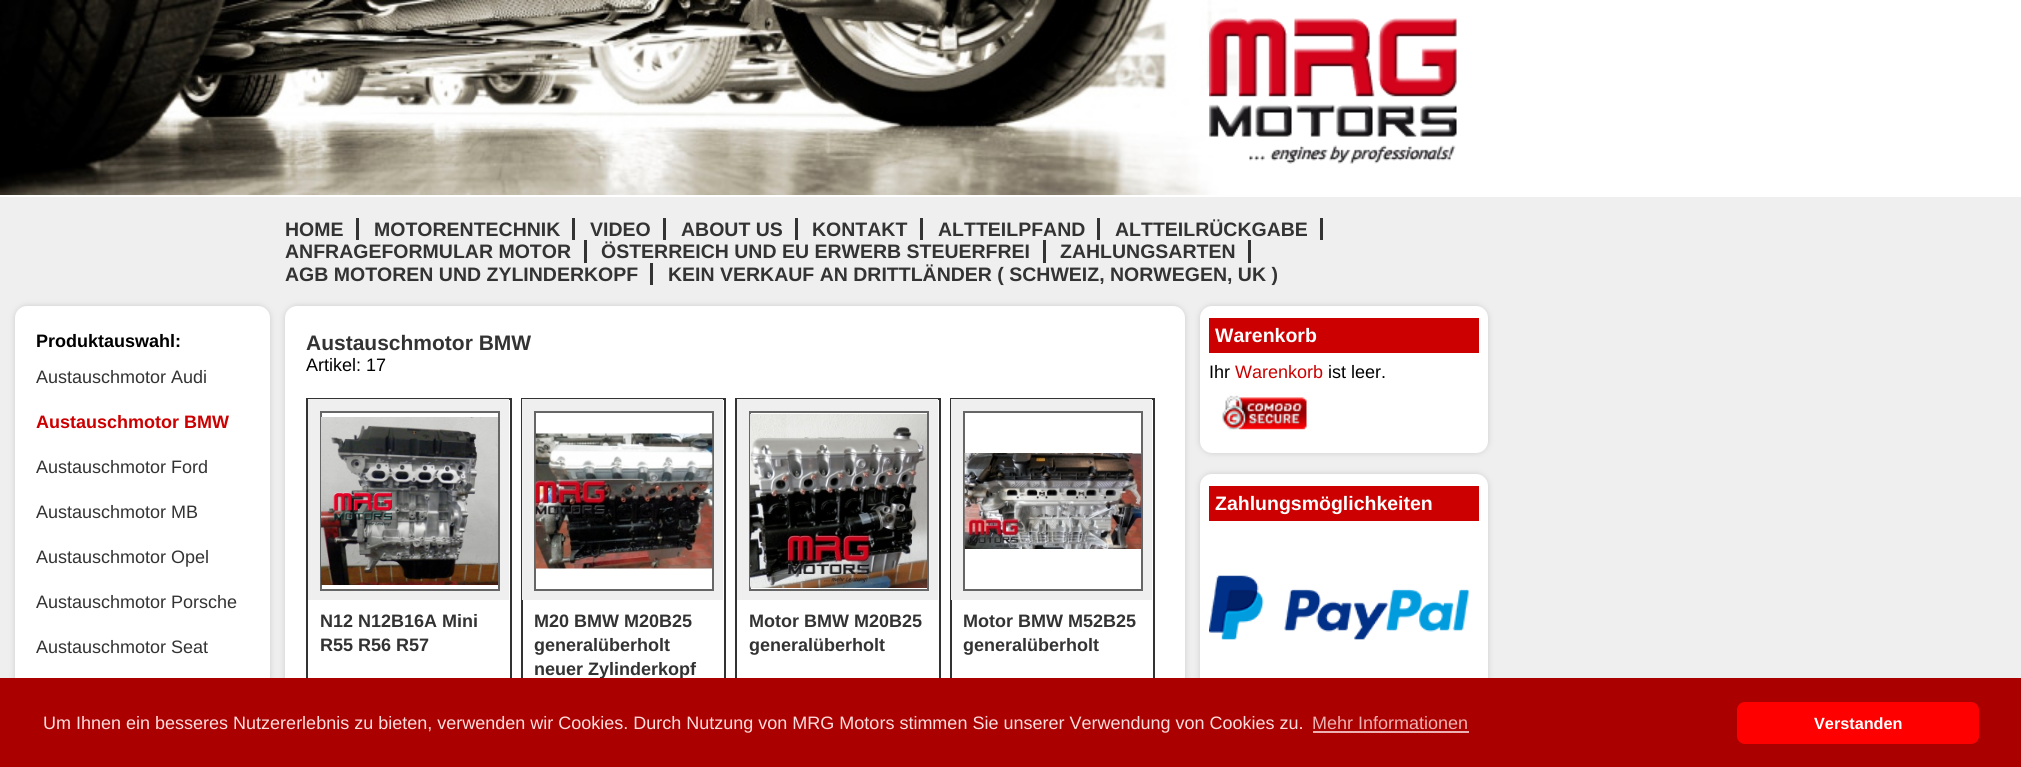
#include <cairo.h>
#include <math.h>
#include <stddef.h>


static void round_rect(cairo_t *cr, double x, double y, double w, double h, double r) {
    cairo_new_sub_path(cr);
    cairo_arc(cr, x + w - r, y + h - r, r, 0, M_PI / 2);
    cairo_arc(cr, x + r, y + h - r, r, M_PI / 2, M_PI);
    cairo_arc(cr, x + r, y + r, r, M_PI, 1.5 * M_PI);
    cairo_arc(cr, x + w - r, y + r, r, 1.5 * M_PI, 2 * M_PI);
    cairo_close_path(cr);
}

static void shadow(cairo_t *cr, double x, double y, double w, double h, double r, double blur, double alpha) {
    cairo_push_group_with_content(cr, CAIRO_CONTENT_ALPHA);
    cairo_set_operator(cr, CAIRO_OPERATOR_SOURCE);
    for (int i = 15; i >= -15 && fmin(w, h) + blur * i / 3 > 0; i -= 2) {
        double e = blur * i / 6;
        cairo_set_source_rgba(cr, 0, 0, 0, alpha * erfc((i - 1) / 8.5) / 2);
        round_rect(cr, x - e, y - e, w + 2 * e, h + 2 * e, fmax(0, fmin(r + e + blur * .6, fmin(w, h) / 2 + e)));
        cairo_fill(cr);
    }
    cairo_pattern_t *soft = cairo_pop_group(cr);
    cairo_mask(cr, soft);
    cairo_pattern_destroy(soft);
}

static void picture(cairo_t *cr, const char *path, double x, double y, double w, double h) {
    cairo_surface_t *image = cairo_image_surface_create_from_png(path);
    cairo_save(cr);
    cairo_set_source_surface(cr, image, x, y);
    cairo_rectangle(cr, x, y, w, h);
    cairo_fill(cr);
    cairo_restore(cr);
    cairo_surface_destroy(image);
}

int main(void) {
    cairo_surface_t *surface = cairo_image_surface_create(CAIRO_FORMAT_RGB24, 2021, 767);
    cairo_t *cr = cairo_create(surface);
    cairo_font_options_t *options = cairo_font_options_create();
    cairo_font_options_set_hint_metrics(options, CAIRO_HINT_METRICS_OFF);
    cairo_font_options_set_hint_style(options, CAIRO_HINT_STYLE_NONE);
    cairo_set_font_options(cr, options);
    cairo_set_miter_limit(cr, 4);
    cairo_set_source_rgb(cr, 0.937, 0.937, 0.937);
    cairo_paint(cr);
    cairo_set_source_rgb(cr, 1, 1, 1);
    cairo_rectangle(cr, 0, 0, 2021, 197);
    cairo_fill(cr);
    picture(cr, "img1.png", 0, 0, 1238, 195);
    picture(cr, "img2.png", 1209, 18, 248, 146);
    cairo_set_source_rgb(cr, 0.2, 0.2, 0.2);
    cairo_rectangle(cr, 356, 218, 3, 22);
    cairo_fill(cr);
    cairo_select_font_face(cr, "Liberation Sans", CAIRO_FONT_SLANT_NORMAL, CAIRO_FONT_WEIGHT_BOLD);
    cairo_set_font_size(cr, 19.5);
    cairo_move_to(cr, 285, 236);
    cairo_show_text(cr, "HOME");
    cairo_rectangle(cr, 572, 218, 3, 22);
    cairo_fill(cr);
    cairo_move_to(cr, 374, 236);
    cairo_show_text(cr, "MOTORENTECHNIK");
    cairo_rectangle(cr, 663, 218, 3, 22);
    cairo_fill(cr);
    cairo_move_to(cr, 590, 236);
    cairo_show_text(cr, "VIDEO");
    cairo_rectangle(cr, 795, 218, 3, 22);
    cairo_fill(cr);
    cairo_move_to(cr, 681, 236);
    cairo_show_text(cr, "ABOUT US");
    cairo_rectangle(cr, 920, 218, 3, 22);
    cairo_fill(cr);
    cairo_move_to(cr, 812, 236);
    cairo_show_text(cr, "KONTAKT");
    cairo_rectangle(cr, 1097, 218, 3, 22);
    cairo_fill(cr);
    cairo_move_to(cr, 938, 236);
    cairo_show_text(cr, "ALTTEILPFAND");
    cairo_rectangle(cr, 1320, 218, 3, 22);
    cairo_fill(cr);
    cairo_move_to(cr, 1115, 236);
    cairo_show_text(cr, "ALTTEILRÜCKGABE");
    cairo_rectangle(cr, 584, 240, 3, 23);
    cairo_fill(cr);
    cairo_move_to(cr, 285, 258);
    cairo_show_text(cr, "ANFRAGEFORMULAR MOTOR");
    cairo_rectangle(cr, 1043, 240, 3, 23);
    cairo_fill(cr);
    cairo_move_to(cr, 601, 258);
    cairo_show_text(cr, "ÖSTERREICH UND EU ERWERB STEUERFREI");
    cairo_rectangle(cr, 1248, 240, 3, 23);
    cairo_fill(cr);
    cairo_move_to(cr, 1060, 258);
    cairo_show_text(cr, "ZAHLUNGSARTEN");
    cairo_rectangle(cr, 650, 263, 3, 22);
    cairo_fill(cr);
    cairo_move_to(cr, 285, 281);
    cairo_show_text(cr, "AGB MOTOREN UND ZYLINDERKOPF");
    cairo_move_to(cr, 668, 281);
    cairo_show_text(cr, "KEIN VERKAUF AN DRITTLÄNDER ( SCHWEIZ, NORWEGEN, UK )");
    cairo_set_source_rgb(cr, 0.8, 0.8, 0.8);
    shadow(cr, 15, 306, 255, 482, 12, 3, 1);
    cairo_set_source_rgb(cr, 1, 1, 1);
    round_rect(cr, 15, 306, 255, 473, 12);
    cairo_fill(cr);
    cairo_set_font_size(cr, 18);
    cairo_set_source_rgb(cr, 0, 0, 0);
    cairo_move_to(cr, 36, 347);
    cairo_show_text(cr, "Produktauswahl:");
    cairo_select_font_face(cr, "Liberation Sans", CAIRO_FONT_SLANT_NORMAL, CAIRO_FONT_WEIGHT_NORMAL);
    cairo_set_source_rgb(cr, 0.2, 0.2, 0.2);
    cairo_move_to(cr, 36, 383);
    cairo_show_text(cr, "Austauschmotor Audi");
    cairo_select_font_face(cr, "Liberation Sans", CAIRO_FONT_SLANT_NORMAL, CAIRO_FONT_WEIGHT_BOLD);
    cairo_set_source_rgb(cr, 0.8, 0, 0);
    cairo_move_to(cr, 36, 428);
    cairo_show_text(cr, "Austauschmotor BMW");
    cairo_select_font_face(cr, "Liberation Sans", CAIRO_FONT_SLANT_NORMAL, CAIRO_FONT_WEIGHT_NORMAL);
    cairo_set_source_rgb(cr, 0.2, 0.2, 0.2);
    cairo_move_to(cr, 36, 473);
    cairo_show_text(cr, "Austauschmotor Ford");
    cairo_move_to(cr, 36, 518);
    cairo_show_text(cr, "Austauschmotor MB");
    cairo_move_to(cr, 36, 563);
    cairo_show_text(cr, "Austauschmotor Opel");
    cairo_move_to(cr, 36, 608);
    cairo_show_text(cr, "Austauschmotor Porsche");
    cairo_move_to(cr, 36, 653);
    cairo_show_text(cr, "Austauschmotor Seat");
    cairo_set_source_rgb(cr, 0.8, 0.8, 0.8);
    shadow(cr, 285, 306, 900, 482, 12, 3, 1);
    cairo_set_source_rgb(cr, 1, 1, 1);
    round_rect(cr, 285, 306, 900, 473, 12);
    cairo_fill(cr);
    cairo_select_font_face(cr, "Liberation Sans", CAIRO_FONT_SLANT_NORMAL, CAIRO_FONT_WEIGHT_BOLD);
    cairo_set_font_size(cr, 21);
    cairo_set_source_rgb(cr, 0.2, 0.2, 0.2);
    cairo_move_to(cr, 306, 350);
    cairo_show_text(cr, "Austauschmotor BMW");
    cairo_select_font_face(cr, "Liberation Sans", CAIRO_FONT_SLANT_NORMAL, CAIRO_FONT_WEIGHT_NORMAL);
    cairo_set_font_size(cr, 18);
    cairo_set_source_rgb(cr, 0, 0, 0);
    cairo_move_to(cr, 306, 371);
    cairo_show_text(cr, "Artikel: 17");
    cairo_rectangle(cr, 307, 399, 204, 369);
    cairo_set_source_rgb(cr, 0.2, 0.2, 0.2);
    cairo_stroke(cr);
    cairo_set_source_rgb(cr, 0.937, 0.937, 0.937);
    cairo_rectangle(cr, 308, 399, 201, 201);
    cairo_fill(cr);
    cairo_set_source_rgb(cr, 1, 1, 1);
    cairo_rectangle(cr, 321, 412, 178, 178);
    cairo_fill_preserve(cr);
    cairo_set_source_rgb(cr, 0.4, 0.4, 0.4);
    cairo_stroke(cr);
    picture(cr, "img3.png", 321, 417, 177, 168);
    cairo_select_font_face(cr, "Liberation Sans", CAIRO_FONT_SLANT_NORMAL, CAIRO_FONT_WEIGHT_BOLD);
    cairo_set_source_rgb(cr, 0.2, 0.2, 0.2);
    cairo_move_to(cr, 320, 627);
    cairo_show_text(cr, "N12 N12B16A Mini");
    cairo_move_to(cr, 320, 651);
    cairo_show_text(cr, "R55 R56 R57");
    cairo_rectangle(cr, 522, 399, 203, 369);
    cairo_stroke(cr);
    cairo_set_source_rgb(cr, 0.937, 0.937, 0.937);
    cairo_rectangle(cr, 522, 399, 201, 201);
    cairo_fill(cr);
    cairo_set_source_rgb(cr, 1, 1, 1);
    cairo_rectangle(cr, 535, 412, 178, 178);
    cairo_fill_preserve(cr);
    cairo_set_source_rgb(cr, 0.4, 0.4, 0.4);
    cairo_stroke(cr);
    picture(cr, "img4.png", 535, 433, 178, 136);
    cairo_set_source_rgb(cr, 0.2, 0.2, 0.2);
    cairo_move_to(cr, 534, 627);
    cairo_show_text(cr, "M20 BMW M20B25");
    cairo_move_to(cr, 534, 651);
    cairo_show_text(cr, "generalüberholt");
    cairo_move_to(cr, 534, 675);
    cairo_show_text(cr, "neuer Zylinderkopf");
    cairo_rectangle(cr, 736, 399, 204, 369);
    cairo_stroke(cr);
    cairo_set_source_rgb(cr, 0.937, 0.937, 0.937);
    cairo_rectangle(cr, 737, 399, 201, 201);
    cairo_fill(cr);
    cairo_set_source_rgb(cr, 1, 1, 1);
    cairo_rectangle(cr, 750, 412, 178, 178);
    cairo_fill_preserve(cr);
    cairo_set_source_rgb(cr, 0.4, 0.4, 0.4);
    cairo_stroke(cr);
    picture(cr, "img5.png", 750, 414, 177, 174);
    cairo_set_source_rgb(cr, 0.2, 0.2, 0.2);
    cairo_move_to(cr, 749, 627);
    cairo_show_text(cr, "Motor BMW M20B25");
    cairo_move_to(cr, 749, 651);
    cairo_show_text(cr, "generalüberholt");
    cairo_rectangle(cr, 951, 399, 203, 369);
    cairo_stroke(cr);
    cairo_set_source_rgb(cr, 0.937, 0.937, 0.937);
    cairo_rectangle(cr, 951, 399, 201, 201);
    cairo_fill(cr);
    cairo_set_source_rgb(cr, 1, 1, 1);
    cairo_rectangle(cr, 964, 412, 178, 178);
    cairo_fill_preserve(cr);
    cairo_set_source_rgb(cr, 0.4, 0.4, 0.4);
    cairo_stroke(cr);
    picture(cr, "img6.png", 964, 453, 178, 96);
    cairo_set_source_rgb(cr, 0.2, 0.2, 0.2);
    cairo_move_to(cr, 963, 627);
    cairo_show_text(cr, "Motor BMW M52B25");
    cairo_move_to(cr, 963, 651);
    cairo_show_text(cr, "generalüberholt");
    cairo_set_source_rgb(cr, 0.8, 0.8, 0.8);
    shadow(cr, 1200, 306, 288, 147, 12, 3, 1);
    cairo_set_source_rgb(cr, 1, 1, 1);
    round_rect(cr, 1200, 306, 288, 147, 12);
    cairo_fill(cr);
    cairo_set_source_rgb(cr, 0.8, 0, 0);
    cairo_rectangle(cr, 1209, 318, 270, 35);
    cairo_fill(cr);
    cairo_set_font_size(cr, 19.5);
    cairo_set_source_rgb(cr, 1, 1, 1);
    cairo_move_to(cr, 1215, 342);
    cairo_show_text(cr, "Warenkorb");
    cairo_select_font_face(cr, "Liberation Sans", CAIRO_FONT_SLANT_NORMAL, CAIRO_FONT_WEIGHT_NORMAL);
    cairo_set_font_size(cr, 18);
    cairo_set_source_rgb(cr, 0, 0, 0);
    cairo_move_to(cr, 1209, 378);
    cairo_show_text(cr, "Ihr");
    cairo_set_source_rgb(cr, 0.8, 0, 0);
    cairo_move_to(cr, 1235, 378);
    cairo_show_text(cr, "Warenkorb");
    cairo_set_source_rgb(cr, 0, 0, 0);
    cairo_move_to(cr, 1328, 378);
    cairo_show_text(cr, "ist leer.");
    picture(cr, "img7.png", 1222, 395, 85, 35);
    cairo_set_source_rgb(cr, 0.8, 0.8, 0.8);
    shadow(cr, 1200, 474, 288, 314, 12, 3, 1);
    cairo_set_source_rgb(cr, 1, 1, 1);
    round_rect(cr, 1200, 474, 288, 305, 12);
    cairo_fill(cr);
    cairo_set_source_rgb(cr, 0.8, 0, 0);
    cairo_rectangle(cr, 1209, 486, 270, 35);
    cairo_fill(cr);
    cairo_select_font_face(cr, "Liberation Sans", CAIRO_FONT_SLANT_NORMAL, CAIRO_FONT_WEIGHT_BOLD);
    cairo_set_font_size(cr, 19.5);
    cairo_set_source_rgb(cr, 1, 1, 1);
    cairo_move_to(cr, 1215, 510);
    cairo_show_text(cr, "Zahlungsmöglichkeiten");
    picture(cr, "img8.png", 1209, 575, 260, 65);
    cairo_set_source_rgb(cr, 0.667, 0, 0);
    cairo_rectangle(cr, 0, 678, 2021, 89);
    cairo_fill(cr);
    cairo_select_font_face(cr, "Liberation Sans", CAIRO_FONT_SLANT_NORMAL, CAIRO_FONT_WEIGHT_NORMAL);
    cairo_set_font_size(cr, 18);
    cairo_set_source_rgb(cr, 1, 0.867, 0.867);
    cairo_move_to(cr, 43, 729);
    cairo_show_text(cr, "Um Ihnen ein besseres Nutzererlebnis zu bieten, verwenden wir Cookies. Durch Nutzung von MRG Motors stimmen Sie unserer Verwendung von Cookies zu.");
    cairo_set_source_rgb(cr, 0.933, 0.694, 0.694);
    cairo_move_to(cr, 1312, 729);
    cairo_show_text(cr, "Mehr Informationen");
    cairo_rectangle(cr, 1313, 731, 156, 2);
    cairo_fill(cr);
    cairo_set_source_rgb(cr, 1, 0, 0);
    round_rect(cr, 1737, 702, 242, 42, 8);
    cairo_fill(cr);
    cairo_select_font_face(cr, "Liberation Sans", CAIRO_FONT_SLANT_NORMAL, CAIRO_FONT_WEIGHT_BOLD);
    cairo_set_font_size(cr, 16.25);
    cairo_set_source_rgb(cr, 1, 1, 1);
    cairo_move_to(cr, 1814, 729);
    cairo_show_text(cr, "Verstanden");
    cairo_surface_write_to_png(surface, "page.png");
    cairo_font_options_destroy(options);
    cairo_destroy(cr);
    cairo_surface_destroy(surface);
    return 0;
}
